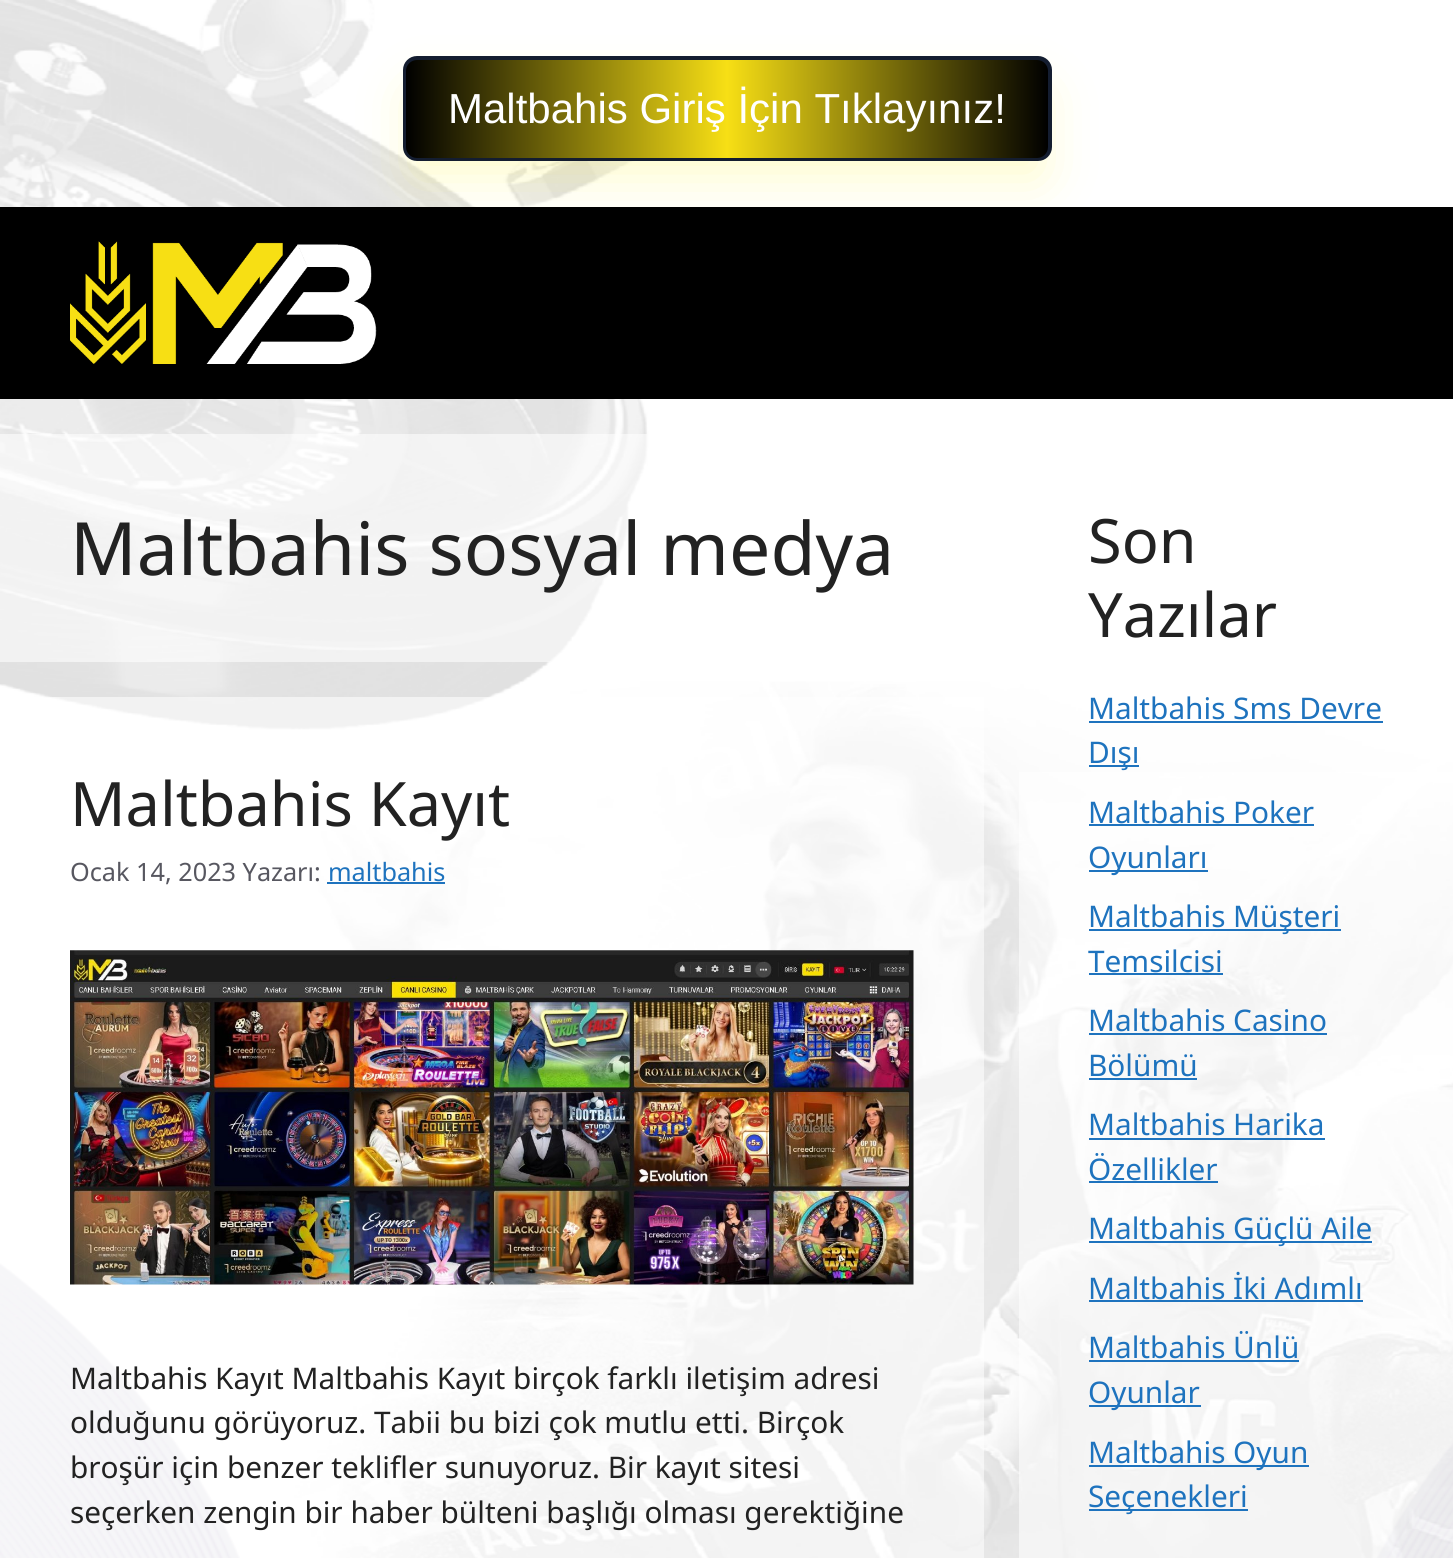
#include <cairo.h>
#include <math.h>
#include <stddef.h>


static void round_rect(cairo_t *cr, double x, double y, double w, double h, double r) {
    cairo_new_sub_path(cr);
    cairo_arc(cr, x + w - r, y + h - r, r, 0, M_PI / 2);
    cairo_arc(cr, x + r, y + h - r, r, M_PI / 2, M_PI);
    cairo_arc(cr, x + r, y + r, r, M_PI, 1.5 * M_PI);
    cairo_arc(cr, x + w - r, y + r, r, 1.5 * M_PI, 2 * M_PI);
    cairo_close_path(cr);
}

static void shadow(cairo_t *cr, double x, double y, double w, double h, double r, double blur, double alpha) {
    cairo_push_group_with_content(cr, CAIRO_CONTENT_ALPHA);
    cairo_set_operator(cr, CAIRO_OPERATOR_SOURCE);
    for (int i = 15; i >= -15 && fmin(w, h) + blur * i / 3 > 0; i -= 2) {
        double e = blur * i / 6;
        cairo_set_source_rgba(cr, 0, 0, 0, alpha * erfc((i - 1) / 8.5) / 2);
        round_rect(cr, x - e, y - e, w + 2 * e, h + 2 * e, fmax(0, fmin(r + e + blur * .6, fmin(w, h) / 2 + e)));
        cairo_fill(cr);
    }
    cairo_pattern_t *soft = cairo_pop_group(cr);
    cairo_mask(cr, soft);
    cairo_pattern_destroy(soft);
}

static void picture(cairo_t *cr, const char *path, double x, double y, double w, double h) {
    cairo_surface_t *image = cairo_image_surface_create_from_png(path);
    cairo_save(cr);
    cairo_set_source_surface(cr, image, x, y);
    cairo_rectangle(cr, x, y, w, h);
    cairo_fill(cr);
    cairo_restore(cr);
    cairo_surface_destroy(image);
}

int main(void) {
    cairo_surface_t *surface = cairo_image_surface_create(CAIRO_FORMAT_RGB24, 1453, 1558);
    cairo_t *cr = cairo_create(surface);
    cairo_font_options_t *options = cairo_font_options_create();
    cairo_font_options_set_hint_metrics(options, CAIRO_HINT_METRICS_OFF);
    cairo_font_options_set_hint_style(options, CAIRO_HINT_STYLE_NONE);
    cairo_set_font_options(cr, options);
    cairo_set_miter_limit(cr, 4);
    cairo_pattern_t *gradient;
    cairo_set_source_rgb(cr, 1, 1, 1);
    cairo_paint(cr);
    picture(cr, "img1.png", 0, 0, 1453, 1558);
    cairo_set_source_rgb(cr, 0.996, 0.945, 0);
    shadow(cr, 411, 91, 632, 88, 5, 26, 0.2);
    cairo_set_source_rgb(cr, 0.082, 0.114, 0.188);
    round_rect(cr, 403, 56, 649, 105, 14);
    cairo_fill(cr);
    gradient = cairo_pattern_create_linear(406, 109, 1048, 108);
    cairo_pattern_add_color_stop_rgba(gradient, 0, 0, 0, 0, 1);
    cairo_pattern_add_color_stop_rgba(gradient, 0.5, 0.969, 0.875, 0.082, 1);
    cairo_pattern_add_color_stop_rgba(gradient, 1, 0, 0, 0, 1);
    cairo_set_source(cr, gradient);
    cairo_pattern_destroy(gradient);
    round_rect(cr, 406, 60, 642, 98, 11);
    cairo_fill(cr);
    cairo_select_font_face(cr, "Liberation Sans", CAIRO_FONT_SLANT_NORMAL, CAIRO_FONT_WEIGHT_NORMAL);
    cairo_set_font_size(cr, 42);
    cairo_set_source_rgb(cr, 1, 1, 1);
    cairo_move_to(cr, 448, 123);
    cairo_show_text(cr, "Maltbahis Giriş İçin Tıklayınız!");
    cairo_set_source_rgb(cr, 0, 0, 0);
    cairo_rectangle(cr, 0, 207, 1453, 192);
    cairo_fill(cr);
    picture(cr, "img2.png", 70, 241, 307, 123);
    cairo_set_source_rgba(cr, 1, 1, 1, 0.56);
    cairo_rectangle(cr, 0, 434, 647, 228);
    cairo_fill(cr);
    cairo_select_font_face(cr, "Noto Sans", CAIRO_FONT_SLANT_NORMAL, CAIRO_FONT_WEIGHT_NORMAL);
    cairo_set_font_size(cr, 73.5);
    cairo_set_source_rgb(cr, 0.133, 0.133, 0.133);
    cairo_move_to(cr, 70, 575);
    cairo_show_text(cr, "Maltbahis sosyal medya");
    cairo_set_source_rgba(cr, 1, 1, 1, 0.56);
    cairo_rectangle(cr, 0, 697, 984, 861);
    cairo_fill(cr);
    cairo_set_font_size(cr, 61.25);
    cairo_set_source_rgb(cr, 0.133, 0.133, 0.133);
    cairo_move_to(cr, 70, 826);
    cairo_show_text(cr, "Maltbahis Kayıt");
    cairo_set_font_size(cr, 25.25);
    cairo_set_source_rgb(cr, 0.341, 0.341, 0.376);
    cairo_move_to(cr, 70, 881);
    cairo_show_text(cr, "Ocak 14, 2023 Yazarı:");
    cairo_set_source_rgb(cr, 0.118, 0.451, 0.745);
    cairo_move_to(cr, 328, 881);
    cairo_show_text(cr, "maltbahis");
    cairo_rectangle(cr, 327, 882, 118, 2);
    cairo_fill(cr);
    picture(cr, "img3.png", 70, 950, 844, 335);
    cairo_set_font_size(cr, 29.75);
    cairo_set_source_rgb(cr, 0.133, 0.133, 0.133);
    cairo_move_to(cr, 70, 1389);
    cairo_show_text(cr, "Maltbahis Kayıt Maltbahis Kayıt birçok farklı iletişim adresi");
    cairo_move_to(cr, 70, 1433);
    cairo_show_text(cr, "olduğunu görüyoruz. Tabii bu bizi çok mutlu etti. Birçok");
    cairo_move_to(cr, 70, 1478);
    cairo_show_text(cr, "broşür için benzer teklifler sunuyoruz. Bir kayıt sitesi");
    cairo_move_to(cr, 70, 1523);
    cairo_show_text(cr, "seçerken zengin bir haber bülteni başlığı olması gerektiğine");
    cairo_set_source_rgba(cr, 1, 1, 1, 0.56);
    cairo_rectangle(cr, 1019, 772, 434, 786);
    cairo_fill(cr);
    cairo_set_font_size(cr, 61.25);
    cairo_set_source_rgb(cr, 0.133, 0.133, 0.133);
    cairo_move_to(cr, 1088, 563);
    cairo_show_text(cr, "Son");
    cairo_move_to(cr, 1088, 637);
    cairo_show_text(cr, "Yazılar");
    cairo_set_font_size(cr, 29.75);
    cairo_set_source_rgb(cr, 0.118, 0.451, 0.745);
    cairo_move_to(cr, 1088, 719);
    cairo_show_text(cr, "Maltbahis Sms Devre");
    cairo_rectangle(cr, 1089, 721, 294, 2);
    cairo_fill(cr);
    cairo_rectangle(cr, 1089, 765, 50, 2);
    cairo_fill(cr);
    cairo_move_to(cr, 1088, 763);
    cairo_show_text(cr, "Dışı");
    cairo_move_to(cr, 1088, 823);
    cairo_show_text(cr, "Maltbahis Poker");
    cairo_rectangle(cr, 1089, 824, 225, 2);
    cairo_fill(cr);
    cairo_rectangle(cr, 1089, 870, 119, 2);
    cairo_fill(cr);
    cairo_move_to(cr, 1088, 868);
    cairo_show_text(cr, "Oyunları");
    cairo_rectangle(cr, 1089, 929, 252, 2);
    cairo_fill(cr);
    cairo_move_to(cr, 1088, 927);
    cairo_show_text(cr, "Maltbahis Müşteri");
    cairo_move_to(cr, 1088, 972);
    cairo_show_text(cr, "Temsilcisi");
    cairo_rectangle(cr, 1089, 973, 134, 2);
    cairo_fill(cr);
    cairo_move_to(cr, 1088, 1031);
    cairo_show_text(cr, "Maltbahis Casino");
    cairo_rectangle(cr, 1089, 1033, 238, 2);
    cairo_fill(cr);
    cairo_move_to(cr, 1088, 1076);
    cairo_show_text(cr, "Bölümü");
    cairo_rectangle(cr, 1089, 1078, 108, 2);
    cairo_fill(cr);
    cairo_move_to(cr, 1088, 1135);
    cairo_show_text(cr, "Maltbahis Harika");
    cairo_rectangle(cr, 1089, 1138, 236, 2);
    cairo_fill(cr);
    cairo_move_to(cr, 1088, 1180);
    cairo_show_text(cr, "Özellikler");
    cairo_rectangle(cr, 1089, 1181, 129, 2);
    cairo_fill(cr);
    cairo_rectangle(cr, 1089, 1241, 283, 2);
    cairo_fill(cr);
    cairo_move_to(cr, 1088, 1239);
    cairo_show_text(cr, "Maltbahis Güçlü Aile");
    cairo_move_to(cr, 1088, 1299);
    cairo_show_text(cr, "Maltbahis İki Adımlı");
    cairo_rectangle(cr, 1089, 1300, 274, 2);
    cairo_fill(cr);
    cairo_move_to(cr, 1088, 1358);
    cairo_show_text(cr, "Maltbahis Ünlü");
    cairo_rectangle(cr, 1089, 1360, 210, 2);
    cairo_fill(cr);
    cairo_rectangle(cr, 1089, 1405, 112, 2);
    cairo_fill(cr);
    cairo_move_to(cr, 1088, 1403);
    cairo_show_text(cr, "Oyunlar");
    cairo_rectangle(cr, 1089, 1465, 220, 2);
    cairo_fill(cr);
    cairo_move_to(cr, 1088, 1463);
    cairo_show_text(cr, "Maltbahis Oyun");
    cairo_rectangle(cr, 1089, 1509, 159, 2);
    cairo_fill(cr);
    cairo_move_to(cr, 1088, 1507);
    cairo_show_text(cr, "Seçenekleri");
    cairo_surface_write_to_png(surface, "page.png");
    cairo_font_options_destroy(options);
    cairo_destroy(cr);
    cairo_surface_destroy(surface);
    return 0;
}
